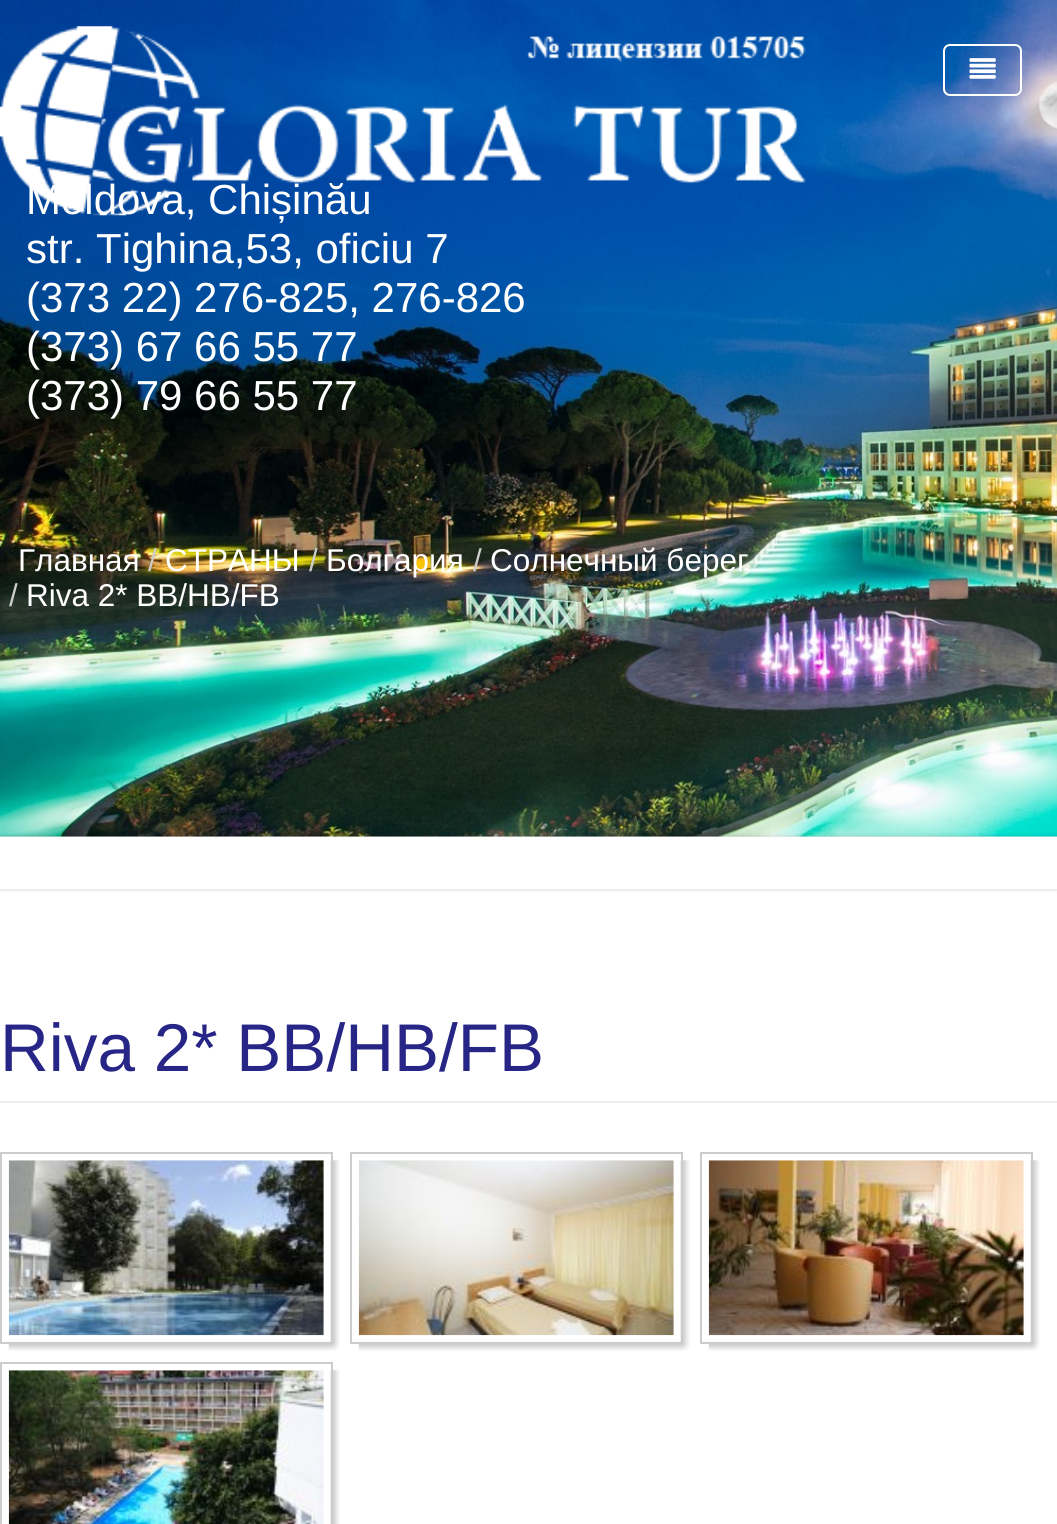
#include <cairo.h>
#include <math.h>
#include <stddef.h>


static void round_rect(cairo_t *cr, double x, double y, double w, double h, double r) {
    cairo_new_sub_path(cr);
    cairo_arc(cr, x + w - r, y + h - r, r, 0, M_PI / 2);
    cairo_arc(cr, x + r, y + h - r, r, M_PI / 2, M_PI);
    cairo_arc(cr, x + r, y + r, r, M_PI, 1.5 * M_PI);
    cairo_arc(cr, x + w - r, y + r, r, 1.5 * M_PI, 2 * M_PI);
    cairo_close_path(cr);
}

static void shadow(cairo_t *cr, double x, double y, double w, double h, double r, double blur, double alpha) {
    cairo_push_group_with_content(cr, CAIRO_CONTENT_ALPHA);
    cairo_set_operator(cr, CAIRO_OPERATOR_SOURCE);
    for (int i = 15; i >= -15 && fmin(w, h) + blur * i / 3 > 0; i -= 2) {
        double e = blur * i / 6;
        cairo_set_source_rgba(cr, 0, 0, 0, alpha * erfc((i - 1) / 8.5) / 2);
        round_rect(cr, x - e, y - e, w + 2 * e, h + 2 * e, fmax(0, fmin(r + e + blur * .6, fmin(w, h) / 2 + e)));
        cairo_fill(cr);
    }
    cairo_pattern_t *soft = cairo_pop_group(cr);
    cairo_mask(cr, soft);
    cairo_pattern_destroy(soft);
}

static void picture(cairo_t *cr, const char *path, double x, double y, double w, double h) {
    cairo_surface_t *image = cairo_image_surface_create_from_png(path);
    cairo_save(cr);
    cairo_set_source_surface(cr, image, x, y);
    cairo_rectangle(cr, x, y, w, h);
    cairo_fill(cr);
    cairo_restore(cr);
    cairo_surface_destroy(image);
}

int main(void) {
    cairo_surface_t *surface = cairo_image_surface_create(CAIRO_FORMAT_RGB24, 1057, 1524);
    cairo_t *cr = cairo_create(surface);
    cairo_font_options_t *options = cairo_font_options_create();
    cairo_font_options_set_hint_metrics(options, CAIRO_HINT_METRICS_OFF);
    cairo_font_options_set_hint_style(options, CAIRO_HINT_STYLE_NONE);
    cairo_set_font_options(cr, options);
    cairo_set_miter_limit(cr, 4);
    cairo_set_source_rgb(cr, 1, 1, 1);
    cairo_paint(cr);
    picture(cr, "img3.png", 0, 0, 1057, 837);
    cairo_select_font_face(cr, "Liberation Sans", CAIRO_FONT_SLANT_NORMAL, CAIRO_FONT_WEIGHT_NORMAL);
    cairo_set_font_size(cr, 42);
    cairo_set_source_rgb(cr, 1, 1, 1);
    cairo_move_to(cr, 26, 214);
    cairo_show_text(cr, "Мoldova, Chișinău");
    picture(cr, "img1.png", 0, 26, 806, 190);
    round_rect(cr, 944, 45, 77, 50, 6);
    cairo_stroke(cr);
    picture(cr, "img2.png", 969, 58, 27, 21);
    cairo_move_to(cr, 26, 263);
    cairo_show_text(cr, "str. Tighina,53, oficiu 7");
    cairo_move_to(cr, 26, 312);
    cairo_show_text(cr, "(373 22) 276-825, 276-826");
    cairo_move_to(cr, 26, 361);
    cairo_show_text(cr, "(373) 67 66 55 77");
    cairo_move_to(cr, 26, 410);
    cairo_show_text(cr, "(373) 79 66 55 77");
    cairo_set_font_size(cr, 31.5);
    cairo_move_to(cr, 18, 571);
    cairo_show_text(cr, "Главная");
    cairo_set_source_rgb(cr, 0.8, 0.8, 0.8);
    cairo_move_to(cr, 148, 571);
    cairo_show_text(cr, "/");
    cairo_set_source_rgb(cr, 1, 1, 1);
    cairo_move_to(cr, 165, 571);
    cairo_show_text(cr, "СТРАНЫ");
    cairo_set_source_rgb(cr, 0.8, 0.8, 0.8);
    cairo_move_to(cr, 309, 571);
    cairo_show_text(cr, "/");
    cairo_set_source_rgb(cr, 1, 1, 1);
    cairo_move_to(cr, 326, 571);
    cairo_show_text(cr, "Болгария");
    cairo_set_source_rgb(cr, 0.8, 0.8, 0.8);
    cairo_move_to(cr, 473, 571);
    cairo_show_text(cr, "/");
    cairo_set_source_rgb(cr, 1, 1, 1);
    cairo_move_to(cr, 490, 571);
    cairo_show_text(cr, "Солнечный берег");
    cairo_set_source_rgb(cr, 0.8, 0.8, 0.8);
    cairo_move_to(cr, 9, 606);
    cairo_show_text(cr, "/");
    cairo_set_source_rgb(cr, 1, 1, 1);
    cairo_move_to(cr, 26, 606);
    cairo_show_text(cr, "Riva 2* BB/HB/FB");
    cairo_save(cr);
    cairo_set_fill_rule(cr, CAIRO_FILL_RULE_EVEN_ODD);
    cairo_new_path(cr);
    cairo_move_to(cr, 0, 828);
    cairo_line_to(cr, 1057, 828);
    cairo_line_to(cr, 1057, 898);
    cairo_line_to(cr, 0, 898);
    cairo_close_path(cr);
    cairo_move_to(cr, 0, 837);
    cairo_line_to(cr, 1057, 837);
    cairo_line_to(cr, 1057, 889);
    cairo_line_to(cr, 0, 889);
    cairo_close_path(cr);
    cairo_clip(cr);
    cairo_set_source_rgb(cr, 0, 0, 0);
    shadow(cr, 0, 837, 1057, 52, 0, 2.5, 0.2);
    cairo_restore(cr);
    cairo_set_source_rgb(cr, 0.933, 0.933, 0.933);
    cairo_rectangle(cr, 0, 1101, 1057, 2);
    cairo_fill(cr);
    cairo_set_font_size(cr, 67.5);
    cairo_set_source_rgb(cr, 0.153, 0.145, 0.525);
    cairo_move_to(cr, 0, 1071);
    cairo_show_text(cr, "Riva 2* BB/HB/FB");
    picture(cr, "img4.png", 8, 1160, 332, 191);
    cairo_rectangle(cr, 1, 1153, 331, 190);
    cairo_set_source_rgb(cr, 0.8, 0.8, 0.8);
    cairo_stroke(cr);
    picture(cr, "img5.png", 8, 1160, 316, 176);
    picture(cr, "img4.png", 358, 1160, 332, 191);
    cairo_rectangle(cr, 351, 1153, 331, 190);
    cairo_stroke(cr);
    picture(cr, "img6.png", 358, 1160, 316, 176);
    picture(cr, "img4.png", 708, 1160, 332, 191);
    cairo_rectangle(cr, 701, 1153, 331, 190);
    cairo_stroke(cr);
    picture(cr, "img7.png", 708, 1160, 316, 176);
    picture(cr, "img8.png", 330, 1370, 10, 154);
    cairo_rectangle(cr, 1, 1363, 331, 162);
    cairo_stroke(cr);
    picture(cr, "img9.png", 8, 1370, 316, 154);
    cairo_surface_write_to_png(surface, "page.png");
    cairo_font_options_destroy(options);
    cairo_destroy(cr);
    cairo_surface_destroy(surface);
    return 0;
}
